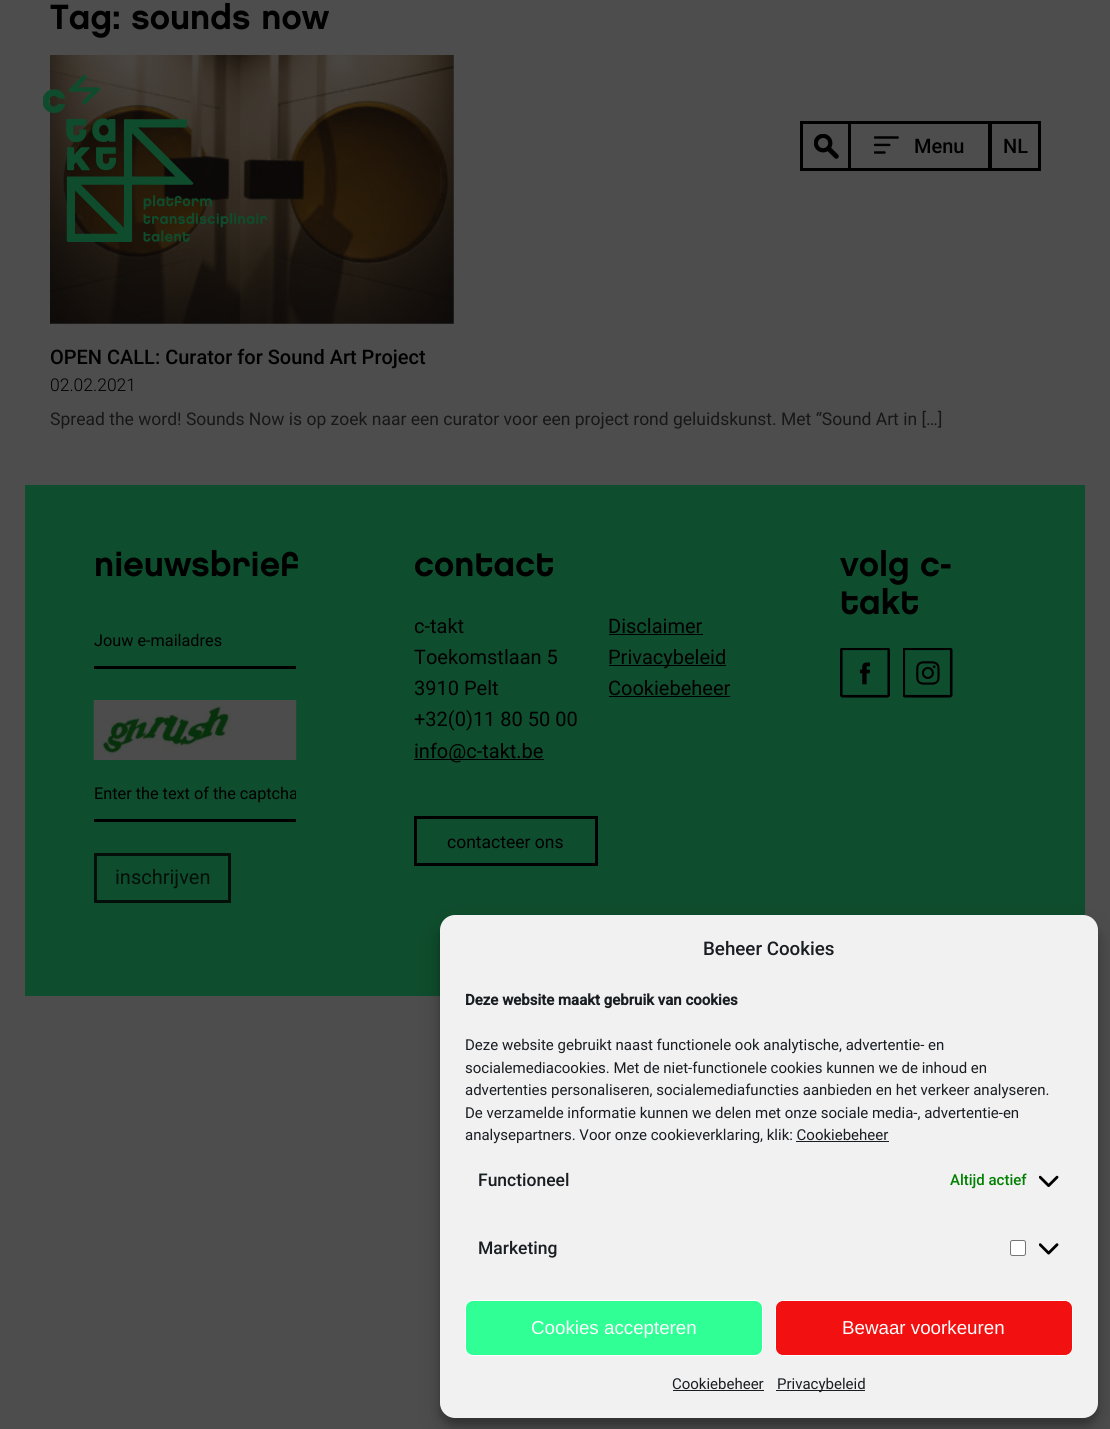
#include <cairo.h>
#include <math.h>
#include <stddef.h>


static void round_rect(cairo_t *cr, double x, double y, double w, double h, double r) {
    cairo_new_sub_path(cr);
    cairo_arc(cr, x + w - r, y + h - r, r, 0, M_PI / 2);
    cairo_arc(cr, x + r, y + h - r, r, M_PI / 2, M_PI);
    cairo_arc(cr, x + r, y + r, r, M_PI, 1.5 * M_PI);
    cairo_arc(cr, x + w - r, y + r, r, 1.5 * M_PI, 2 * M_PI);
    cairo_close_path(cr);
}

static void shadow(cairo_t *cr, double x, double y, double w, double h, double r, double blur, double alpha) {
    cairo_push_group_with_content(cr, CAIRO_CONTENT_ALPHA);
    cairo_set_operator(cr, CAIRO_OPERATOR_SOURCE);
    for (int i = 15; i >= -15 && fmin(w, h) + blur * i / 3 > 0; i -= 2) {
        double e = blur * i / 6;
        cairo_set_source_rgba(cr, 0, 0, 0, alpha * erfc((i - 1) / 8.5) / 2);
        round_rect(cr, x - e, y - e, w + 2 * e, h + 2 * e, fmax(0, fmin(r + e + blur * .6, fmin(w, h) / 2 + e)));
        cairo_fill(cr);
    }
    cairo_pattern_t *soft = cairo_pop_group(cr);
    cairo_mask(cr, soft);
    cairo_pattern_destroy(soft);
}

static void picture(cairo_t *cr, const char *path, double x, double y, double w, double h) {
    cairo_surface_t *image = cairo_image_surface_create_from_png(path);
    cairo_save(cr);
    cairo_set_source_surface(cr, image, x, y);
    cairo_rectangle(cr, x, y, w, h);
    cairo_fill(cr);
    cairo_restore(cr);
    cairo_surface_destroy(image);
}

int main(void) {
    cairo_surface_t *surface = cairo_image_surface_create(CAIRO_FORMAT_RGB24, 1110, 1429);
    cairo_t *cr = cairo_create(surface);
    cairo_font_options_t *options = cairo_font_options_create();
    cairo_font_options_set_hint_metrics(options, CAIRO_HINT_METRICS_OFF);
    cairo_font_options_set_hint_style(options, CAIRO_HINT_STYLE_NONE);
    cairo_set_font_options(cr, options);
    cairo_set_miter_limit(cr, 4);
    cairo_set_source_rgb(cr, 0.302, 0.302, 0.302);
    cairo_paint(cr);
    cairo_select_font_face(cr, "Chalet", CAIRO_FONT_SLANT_NORMAL, CAIRO_FONT_WEIGHT_BOLD);
    cairo_set_font_size(cr, 35);
    cairo_set_source_rgb(cr, 0, 0, 0);
    cairo_move_to(cr, 50, 29);
    cairo_show_text(cr, "Tag: sounds now");
    picture(cr, "img1.png", 50, 55, 404, 269);
    picture(cr, "img2.png", 69, 75, 32, 30);
    cairo_select_font_face(cr, "Roboto Medium", CAIRO_FONT_SLANT_NORMAL, CAIRO_FONT_WEIGHT_NORMAL);
    cairo_set_font_size(cr, 20);
    cairo_move_to(cr, 50, 364);
    cairo_show_text(cr, "OPEN CALL: Curator for Sound Art Project");
    cairo_select_font_face(cr, "Roboto Light", CAIRO_FONT_SLANT_NORMAL, CAIRO_FONT_WEIGHT_NORMAL);
    cairo_set_font_size(cr, 17.5);
    cairo_move_to(cr, 50, 391);
    cairo_show_text(cr, "02.02.2021");
    cairo_select_font_face(cr, "Roboto", CAIRO_FONT_SLANT_NORMAL, CAIRO_FONT_WEIGHT_NORMAL);
    cairo_set_source_rgb(cr, 0.09, 0.09, 0.09);
    cairo_move_to(cr, 50, 425);
    cairo_show_text(cr, "Spread the word! Sounds Now is op zoek naar een curator voor een project rond geluidskunst. Met “Sound Art in […]");
    picture(cr, "img3.png", 43, 89, 225, 153);
    cairo_rectangle(cr, 801.5, 122.5, 188, 47);
    cairo_set_source_rgb(cr, 0, 0, 0);
    cairo_set_line_width(cr, 3);
    cairo_stroke(cr);
    cairo_rectangle(cr, 848, 124, 3, 45);
    cairo_fill(cr);
    picture(cr, "img4.png", 814, 134, 25, 25);
    picture(cr, "img5.png", 874, 136, 25, 18);
    cairo_select_font_face(cr, "Roboto Medium", CAIRO_FONT_SLANT_NORMAL, CAIRO_FONT_WEIGHT_NORMAL);
    cairo_set_font_size(cr, 20);
    cairo_move_to(cr, 914, 153);
    cairo_show_text(cr, "Menu");
    cairo_rectangle(cr, 990.5, 122.5, 49, 47);
    cairo_stroke(cr);
    cairo_move_to(cr, 1003, 153);
    cairo_show_text(cr, "NL");
    cairo_set_source_rgb(cr, 0.055, 0.302, 0.176);
    cairo_rectangle(cr, 25, 485, 1060, 511);
    cairo_fill(cr);
    cairo_select_font_face(cr, "Chalet", CAIRO_FONT_SLANT_NORMAL, CAIRO_FONT_WEIGHT_BOLD);
    cairo_set_font_size(cr, 35);
    cairo_set_source_rgb(cr, 0, 0, 0);
    cairo_move_to(cr, 94, 576);
    cairo_show_text(cr, "nieuwsbrief");
    cairo_rectangle(cr, 94, 666, 202, 3);
    cairo_fill(cr);
    cairo_select_font_face(cr, "Roboto", CAIRO_FONT_SLANT_NORMAL, CAIRO_FONT_WEIGHT_NORMAL);
    cairo_set_font_size(cr, 16.25);
    cairo_move_to(cr, 94, 646);
    cairo_show_text(cr, "Jouw e-mailadres");
    picture(cr, "img6.png", 93, 700, 204, 60);
    cairo_rectangle(cr, 94, 819, 202, 3);
    cairo_fill(cr);
    cairo_save(cr);
    cairo_rectangle(cr, 94, 784, 202, 19);
    cairo_clip(cr);
    cairo_move_to(cr, 94, 799);
    cairo_show_text(cr, "Enter the text of the captcha");
    cairo_restore(cr);
    cairo_rectangle(cr, 95.5, 854.5, 134, 47);
    cairo_set_source_rgb(cr, 0.012, 0.059, 0.035);
    cairo_stroke(cr);
    cairo_set_font_size(cr, 20);
    cairo_move_to(cr, 115, 884);
    cairo_show_text(cr, "inschrijven");
    cairo_select_font_face(cr, "Chalet", CAIRO_FONT_SLANT_NORMAL, CAIRO_FONT_WEIGHT_BOLD);
    cairo_set_font_size(cr, 35);
    cairo_set_source_rgb(cr, 0, 0, 0);
    cairo_move_to(cr, 414, 576);
    cairo_show_text(cr, "contact");
    cairo_select_font_face(cr, "Roboto", CAIRO_FONT_SLANT_NORMAL, CAIRO_FONT_WEIGHT_NORMAL);
    cairo_set_font_size(cr, 20);
    cairo_move_to(cr, 414, 633);
    cairo_show_text(cr, "c-takt");
    cairo_move_to(cr, 414, 664);
    cairo_show_text(cr, "Toekomstlaan 5");
    cairo_move_to(cr, 414, 695);
    cairo_show_text(cr, "3910 Pelt");
    cairo_move_to(cr, 414, 726);
    cairo_show_text(cr, "+32(0)11 80 50 00");
    cairo_rectangle(cr, 414, 759, 130, 1);
    cairo_fill(cr);
    cairo_move_to(cr, 414, 758);
    cairo_show_text(cr, "info@c-takt.be");
    cairo_move_to(cr, 608, 633);
    cairo_show_text(cr, "Disclaimer");
    cairo_rectangle(cr, 609, 634, 94, 1);
    cairo_fill(cr);
    cairo_rectangle(cr, 609, 665, 117, 1);
    cairo_fill(cr);
    cairo_move_to(cr, 608, 664);
    cairo_show_text(cr, "Privacybeleid");
    cairo_move_to(cr, 608, 695);
    cairo_show_text(cr, "Cookiebeheer");
    cairo_rectangle(cr, 609, 696, 121, 1);
    cairo_fill(cr);
    cairo_rectangle(cr, 415.5, 817.5, 181, 47);
    cairo_stroke(cr);
    cairo_set_font_size(cr, 17.5);
    cairo_move_to(cr, 447, 848);
    cairo_show_text(cr, "contacteer ons");
    cairo_select_font_face(cr, "Chalet", CAIRO_FONT_SLANT_NORMAL, CAIRO_FONT_WEIGHT_BOLD);
    cairo_set_font_size(cr, 35);
    cairo_move_to(cr, 840, 576);
    cairo_show_text(cr, "volg c-");
    cairo_move_to(cr, 840, 614);
    cairo_show_text(cr, "takt");
    picture(cr, "img7.png", 840, 648, 50, 50);
    picture(cr, "img8.png", 903, 648, 50, 50);
    cairo_set_source_rgb(cr, 0, 0, 0);
    shadow(cr, 440, 923, 658, 502, 15, 4, 0.23);
    shadow(cr, 440, 928, 658, 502, 15, 12.5, 0.19);
    cairo_set_source_rgb(cr, 0.945, 0.945, 0.945);
    round_rect(cr, 440, 915, 658, 503, 15);
    cairo_fill(cr);
    cairo_select_font_face(cr, "Roboto Medium", CAIRO_FONT_SLANT_NORMAL, CAIRO_FONT_WEIGHT_NORMAL);
    cairo_set_font_size(cr, 18.75);
    cairo_set_source_rgb(cr, 0.098, 0.118, 0.137);
    cairo_move_to(cr, 703, 955);
    cairo_show_text(cr, "Beheer Cookies");
    cairo_select_font_face(cr, "Roboto", CAIRO_FONT_SLANT_NORMAL, CAIRO_FONT_WEIGHT_BOLD);
    cairo_set_font_size(cr, 15);
    cairo_move_to(cr, 465, 1005);
    cairo_show_text(cr, "Deze website maakt gebruik van cookies");
    cairo_select_font_face(cr, "Roboto", CAIRO_FONT_SLANT_NORMAL, CAIRO_FONT_WEIGHT_NORMAL);
    cairo_move_to(cr, 465, 1050);
    cairo_show_text(cr, "Deze website gebruikt naast functionele ook analytische, advertentie- en");
    cairo_move_to(cr, 465, 1073);
    cairo_show_text(cr, "socialemediacookies. Met de niet-functionele cookies kunnen we de inhoud en");
    cairo_move_to(cr, 465, 1095);
    cairo_show_text(cr, "advertenties personaliseren, socialemediafuncties aanbieden en het verkeer analyseren.");
    cairo_move_to(cr, 465, 1118);
    cairo_show_text(cr, "De verzamelde informatie kunnen we delen met onze sociale media-, advertentie-en");
    cairo_move_to(cr, 465, 1140);
    cairo_show_text(cr, "analysepartners. Voor onze cookieverklaring, klik: Cookiebeheer");
    cairo_rectangle(cr, 796, 1141, 93, 1);
    cairo_fill(cr);
    cairo_select_font_face(cr, "Roboto Medium", CAIRO_FONT_SLANT_NORMAL, CAIRO_FONT_WEIGHT_NORMAL);
    cairo_set_font_size(cr, 17.5);
    cairo_move_to(cr, 478, 1186);
    cairo_show_text(cr, "Functioneel");
    cairo_set_font_size(cr, 15);
    cairo_set_source_rgb(cr, 0, 0.502, 0);
    cairo_move_to(cr, 950, 1185);
    cairo_show_text(cr, "Altijd actief");
    picture(cr, "img9.png", 1039, 1175, 20, 12);
    cairo_set_font_size(cr, 17.5);
    cairo_set_source_rgb(cr, 0.098, 0.118, 0.137);
    cairo_move_to(cr, 478, 1254);
    cairo_show_text(cr, "Marketing");
    cairo_set_source_rgb(cr, 1, 1, 1);
    round_rect(cr, 1010.5, 1240.5, 15, 15, 2);
    cairo_fill_preserve(cr);
    cairo_set_source_rgb(cr, 0.463, 0.463, 0.463);
    cairo_set_line_width(cr, 1);
    cairo_stroke(cr);
    picture(cr, "img10.png", 1039, 1243, 20, 12);
    cairo_set_source_rgb(cr, 0.188, 1, 0.584);
    round_rect(cr, 465.5, 1300.5, 297, 55, 7.5);
    cairo_fill_preserve(cr);
    cairo_set_source_rgb(cr, 1, 1, 1);
    cairo_stroke(cr);
    cairo_select_font_face(cr, "Liberation Sans", CAIRO_FONT_SLANT_NORMAL, CAIRO_FONT_WEIGHT_NORMAL);
    cairo_set_font_size(cr, 18.75);
    cairo_move_to(cr, 531, 1334);
    cairo_show_text(cr, "Cookies accepteren");
    cairo_set_source_rgb(cr, 0.949, 0.063, 0.063);
    round_rect(cr, 775.5, 1300.5, 297, 55, 7.5);
    cairo_fill_preserve(cr);
    cairo_set_source_rgb(cr, 1, 1, 1);
    cairo_stroke(cr);
    cairo_move_to(cr, 842, 1334);
    cairo_show_text(cr, "Bewaar voorkeuren");
    cairo_select_font_face(cr, "Roboto", CAIRO_FONT_SLANT_NORMAL, CAIRO_FONT_WEIGHT_NORMAL);
    cairo_set_font_size(cr, 15);
    cairo_set_source_rgb(cr, 0.098, 0.118, 0.137);
    cairo_move_to(cr, 672, 1389);
    cairo_show_text(cr, "Cookiebeheer");
    cairo_rectangle(cr, 673, 1390, 91, 1);
    cairo_fill(cr);
    cairo_rectangle(cr, 776, 1390, 89, 1);
    cairo_fill(cr);
    cairo_move_to(cr, 777, 1389);
    cairo_show_text(cr, "Privacybeleid");
    cairo_surface_write_to_png(surface, "page.png");
    cairo_font_options_destroy(options);
    cairo_destroy(cr);
    cairo_surface_destroy(surface);
    return 0;
}
